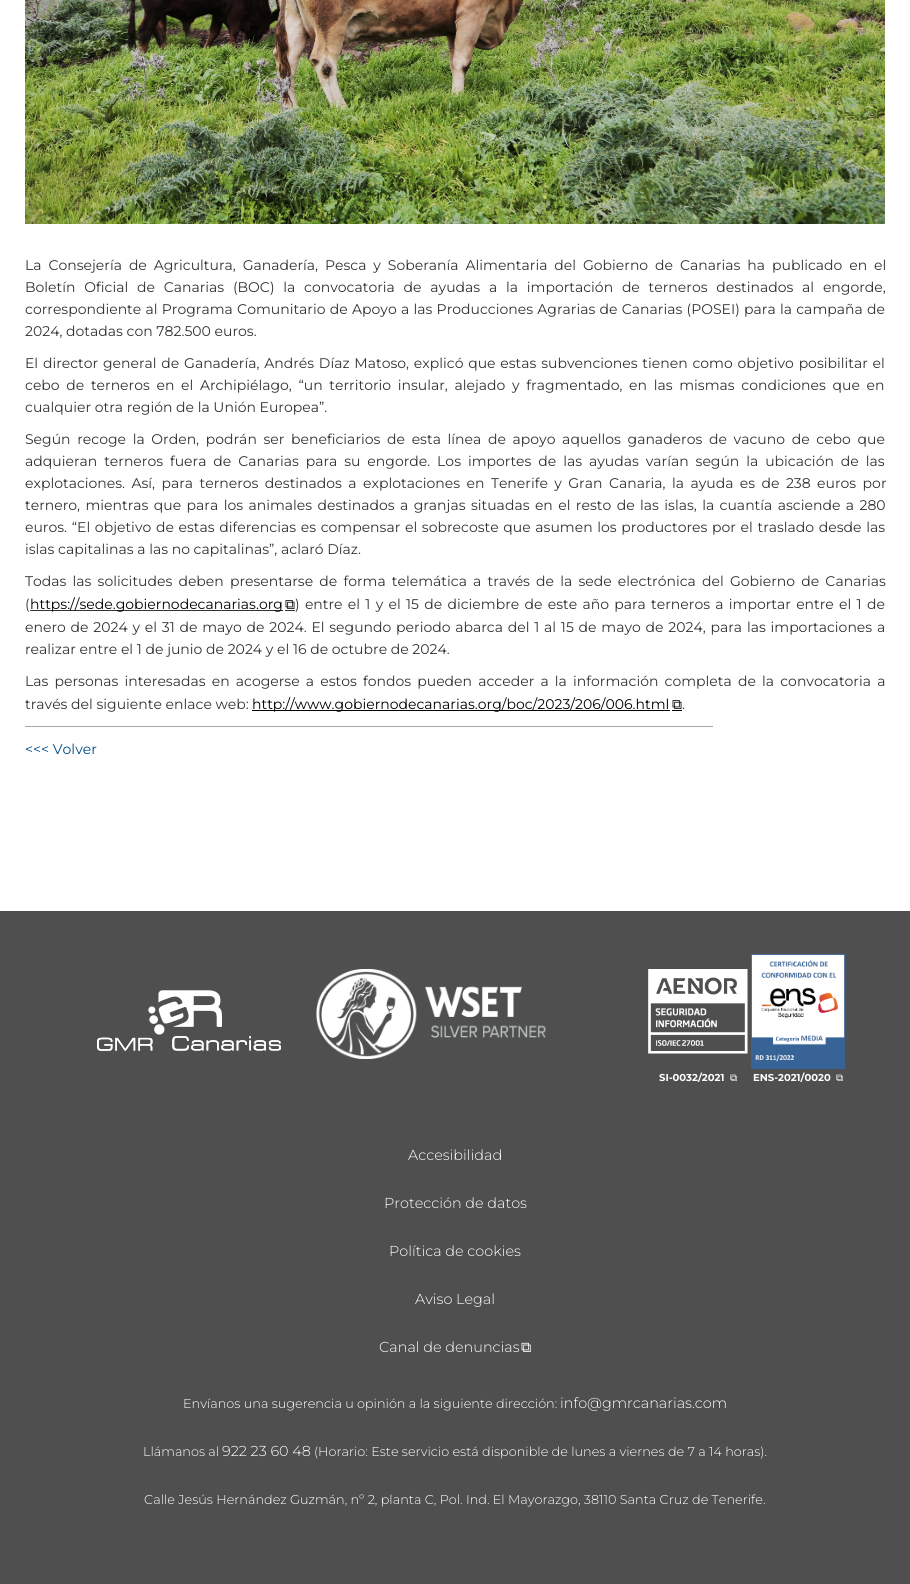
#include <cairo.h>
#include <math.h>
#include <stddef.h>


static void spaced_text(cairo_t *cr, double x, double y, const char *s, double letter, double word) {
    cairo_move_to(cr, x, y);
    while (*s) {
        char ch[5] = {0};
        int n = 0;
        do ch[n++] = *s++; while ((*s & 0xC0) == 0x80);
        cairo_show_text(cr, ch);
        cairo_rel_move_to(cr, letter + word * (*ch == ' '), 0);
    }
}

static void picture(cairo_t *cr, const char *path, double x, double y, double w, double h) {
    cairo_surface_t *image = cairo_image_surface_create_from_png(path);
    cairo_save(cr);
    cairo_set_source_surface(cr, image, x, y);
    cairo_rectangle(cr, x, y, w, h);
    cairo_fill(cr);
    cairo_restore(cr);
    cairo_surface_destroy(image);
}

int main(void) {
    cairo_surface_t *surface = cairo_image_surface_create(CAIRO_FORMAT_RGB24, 910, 1584);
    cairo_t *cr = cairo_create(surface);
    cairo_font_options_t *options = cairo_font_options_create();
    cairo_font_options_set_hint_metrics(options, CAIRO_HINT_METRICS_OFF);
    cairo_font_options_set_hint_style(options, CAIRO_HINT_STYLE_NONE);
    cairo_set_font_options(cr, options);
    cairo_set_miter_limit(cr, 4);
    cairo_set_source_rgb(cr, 1, 1, 1);
    cairo_paint(cr);
    picture(cr, "img1.png", 25, 0, 860, 224);
    cairo_select_font_face(cr, "Montserrat", CAIRO_FONT_SLANT_NORMAL, CAIRO_FONT_WEIGHT_NORMAL);
    cairo_set_font_size(cr, 14);
    cairo_set_source_rgb(cr, 0.2, 0.2, 0.2);
    spaced_text(cr, 25, 270, "La Consejería de Agricultura, Ganadería, Pesca y Soberanía Alimentaria del Gobierno de Canarias ha publicado en el", 0, 3.25);
    spaced_text(cr, 25, 292, "Boletín Oficial de Canarias (BOC) la convocatoria de ayudas a la importación de terneros destinados al engorde,", 0, 5.1);
    spaced_text(cr, 25, 314, "correspondiente al Programa Comunitario de Apoyo a las Producciones Agrarias de Canarias (POSEI) para la campaña de", 0, 0.6);
    cairo_move_to(cr, 25, 336);
    cairo_show_text(cr, "2024, dotadas con 782.500 euros.");
    spaced_text(cr, 25, 368, "El director general de Ganadería, Andrés Díaz Matoso, explicó que estas subvenciones tienen como objetivo posibilitar el", 0, 1.1);
    spaced_text(cr, 25, 390, "cebo de terneros en el Archipiélago, “un territorio insular, alejado y fragmentado, en las mismas condiciones que en", 0, 3);
    cairo_move_to(cr, 25, 412);
    cairo_show_text(cr, "cualquier otra región de la Unión Europea”.");
    spaced_text(cr, 25, 444, "Según recoge la Orden, podrán ser beneficiarios de esta línea de apoyo aquellos ganaderos de vacuno de cebo que", 0, 3);
    spaced_text(cr, 25, 466, "adquieran terneros fuera de Canarias para su engorde. Los importes de las ayudas varían según la ubicación de las", 0, 3.25);
    spaced_text(cr, 25, 488, "explotaciones. Así, para terneros destinados a explotaciones en Tenerife y Gran Canaria, la ayuda es de 238 euros por", 0, 2.75);
    spaced_text(cr, 25, 510, "ternero, mientras que para los animales destinados a granjas situadas en el resto de las islas, la cuantía asciende a 280", 0, 1.75);
    spaced_text(cr, 25, 532, "euros. “El objetivo de estas diferencias es compensar el sobrecoste que asumen los productores por el traslado desde las", 0, 1);
    cairo_move_to(cr, 25, 554);
    cairo_show_text(cr, "islas capitalinas a las no capitalinas”, aclaró Díaz.");
    spaced_text(cr, 25, 586, "Todas las solicitudes deben presentarse de forma telemática a través de la sede electrónica del Gobierno de Canarias", 0, 2.5);
    cairo_move_to(cr, 25, 609);
    cairo_show_text(cr, "(");
    cairo_rectangle(cr, 30, 610, 253, 1);
    cairo_fill(cr);
    cairo_set_source_rgb(cr, 0, 0, 0);
    cairo_move_to(cr, 30, 609);
    cairo_show_text(cr, "https://sede.gobiernodecanarias.org");
    cairo_select_font_face(cr, "FreeSerif", CAIRO_FONT_SLANT_NORMAL, CAIRO_FONT_WEIGHT_NORMAL);
    cairo_move_to(cr, 285, 609);
    cairo_show_text(cr, "⧉");
    cairo_set_source_rgb(cr, 0.2, 0.2, 0.2);
    cairo_rectangle(cr, 285, 610, 10, 1);
    cairo_fill(cr);
    cairo_select_font_face(cr, "Montserrat", CAIRO_FONT_SLANT_NORMAL, CAIRO_FONT_WEIGHT_NORMAL);
    spaced_text(cr, 295, 609, ") entre el 1 y el 15 de diciembre de este año para terneros a importar entre el 1 de", 0, 1.6);
    spaced_text(cr, 25, 632, "enero de 2024 y el 31 de mayo de 2024. El segundo periodo abarca del 1 al 15 de mayo de 2024, para las importaciones a", 0, 1.1);
    cairo_move_to(cr, 25, 654);
    cairo_show_text(cr, "realizar entre el 1 de junio de 2024 y el 16 de octubre de 2024.");
    spaced_text(cr, 25, 686, "Las personas interesadas en acogerse a estos fondos pueden acceder a la información completa de la convocatoria a", 0, 2.5);
    cairo_move_to(cr, 25, 709);
    cairo_show_text(cr, "través del siguiente enlace web:");
    cairo_set_source_rgb(cr, 0, 0, 0);
    cairo_rectangle(cr, 252, 710, 418, 1);
    cairo_fill(cr);
    cairo_move_to(cr, 252, 709);
    cairo_show_text(cr, "http://www.gobiernodecanarias.org/boc/2023/206/006.html");
    cairo_select_font_face(cr, "FreeSerif", CAIRO_FONT_SLANT_NORMAL, CAIRO_FONT_WEIGHT_NORMAL);
    cairo_move_to(cr, 672, 709);
    cairo_show_text(cr, "⧉");
    cairo_rectangle(cr, 672, 710, 10, 1);
    cairo_fill(cr);
    cairo_select_font_face(cr, "Montserrat", CAIRO_FONT_SLANT_NORMAL, CAIRO_FONT_WEIGHT_NORMAL);
    cairo_set_source_rgb(cr, 0.2, 0.2, 0.2);
    cairo_move_to(cr, 682, 709);
    cairo_show_text(cr, ".");
    cairo_set_source_rgb(cr, 0.655, 0.655, 0.655);
    cairo_rectangle(cr, 25, 726, 688, 1);
    cairo_fill(cr);
    cairo_set_source_rgb(cr, 0, 0.298, 0.518);
    cairo_move_to(cr, 25, 754);
    cairo_show_text(cr, "<<< Volver");
    cairo_set_source_rgb(cr, 0.31, 0.31, 0.31);
    cairo_rectangle(cr, 0, 911, 910, 673);
    cairo_fill(cr);
    picture(cr, "img2.png", 97, 990, 184, 61);
    picture(cr, "img3.png", 316, 969, 230, 90);
    picture(cr, "img4.png", 648, 969, 100, 85);
    cairo_select_font_face(cr, "Montserrat", CAIRO_FONT_SLANT_NORMAL, CAIRO_FONT_WEIGHT_BOLD);
    cairo_set_font_size(cr, 10);
    cairo_set_source_rgb(cr, 1, 1, 1);
    cairo_move_to(cr, 659, 1081);
    cairo_show_text(cr, "SI-0032/2021");
    cairo_select_font_face(cr, "FreeSerif", CAIRO_FONT_SLANT_NORMAL, CAIRO_FONT_WEIGHT_NORMAL);
    cairo_move_to(cr, 730, 1081);
    cairo_show_text(cr, "⧉");
    picture(cr, "img5.png", 751, 954, 94, 115);
    cairo_select_font_face(cr, "Montserrat", CAIRO_FONT_SLANT_NORMAL, CAIRO_FONT_WEIGHT_BOLD);
    cairo_move_to(cr, 753, 1081);
    cairo_show_text(cr, "ENS-2021/0020");
    cairo_select_font_face(cr, "FreeSerif", CAIRO_FONT_SLANT_NORMAL, CAIRO_FONT_WEIGHT_NORMAL);
    cairo_move_to(cr, 836, 1081);
    cairo_show_text(cr, "⧉");
    cairo_select_font_face(cr, "Montserrat Light", CAIRO_FONT_SLANT_NORMAL, CAIRO_FONT_WEIGHT_NORMAL);
    cairo_set_font_size(cr, 14.4);
    cairo_move_to(cr, 408, 1160);
    cairo_show_text(cr, "Accesibilidad");
    cairo_move_to(cr, 384, 1208);
    cairo_show_text(cr, "Protección de datos");
    cairo_move_to(cr, 389, 1256);
    cairo_show_text(cr, "Política de cookies");
    cairo_move_to(cr, 415, 1304);
    cairo_show_text(cr, "Aviso Legal");
    cairo_move_to(cr, 379, 1352);
    cairo_show_text(cr, "Canal de denuncias");
    cairo_select_font_face(cr, "FreeSerif", CAIRO_FONT_SLANT_NORMAL, CAIRO_FONT_WEIGHT_NORMAL);
    cairo_move_to(cr, 521, 1352);
    cairo_show_text(cr, "⧉");
    cairo_select_font_face(cr, "Montserrat Light", CAIRO_FONT_SLANT_NORMAL, CAIRO_FONT_WEIGHT_NORMAL);
    cairo_set_font_size(cr, 12.8);
    cairo_move_to(cr, 183, 1408);
    cairo_show_text(cr, "Envíanos una sugerencia u opinión a la siguiente dirección:");
    cairo_set_font_size(cr, 14.4);
    cairo_move_to(cr, 560, 1408);
    cairo_show_text(cr, "info@gmrcanarias.com");
    cairo_set_font_size(cr, 12.8);
    cairo_move_to(cr, 143, 1456);
    cairo_show_text(cr, "Llámanos al");
    cairo_set_font_size(cr, 14.4);
    cairo_move_to(cr, 222, 1456);
    cairo_show_text(cr, "922 23 60 48");
    cairo_set_font_size(cr, 12.8);
    cairo_move_to(cr, 314, 1456);
    cairo_show_text(cr, "(Horario: Este servicio está disponible de lunes a viernes de 7 a 14 horas).");
    cairo_move_to(cr, 144, 1504);
    cairo_show_text(cr, "Calle Jesús Hernández Guzmán, nº 2, planta C, Pol. Ind. El Mayorazgo, 38110 Santa Cruz de Tenerife.");
    cairo_surface_write_to_png(surface, "page.png");
    cairo_font_options_destroy(options);
    cairo_destroy(cr);
    cairo_surface_destroy(surface);
    return 0;
}
